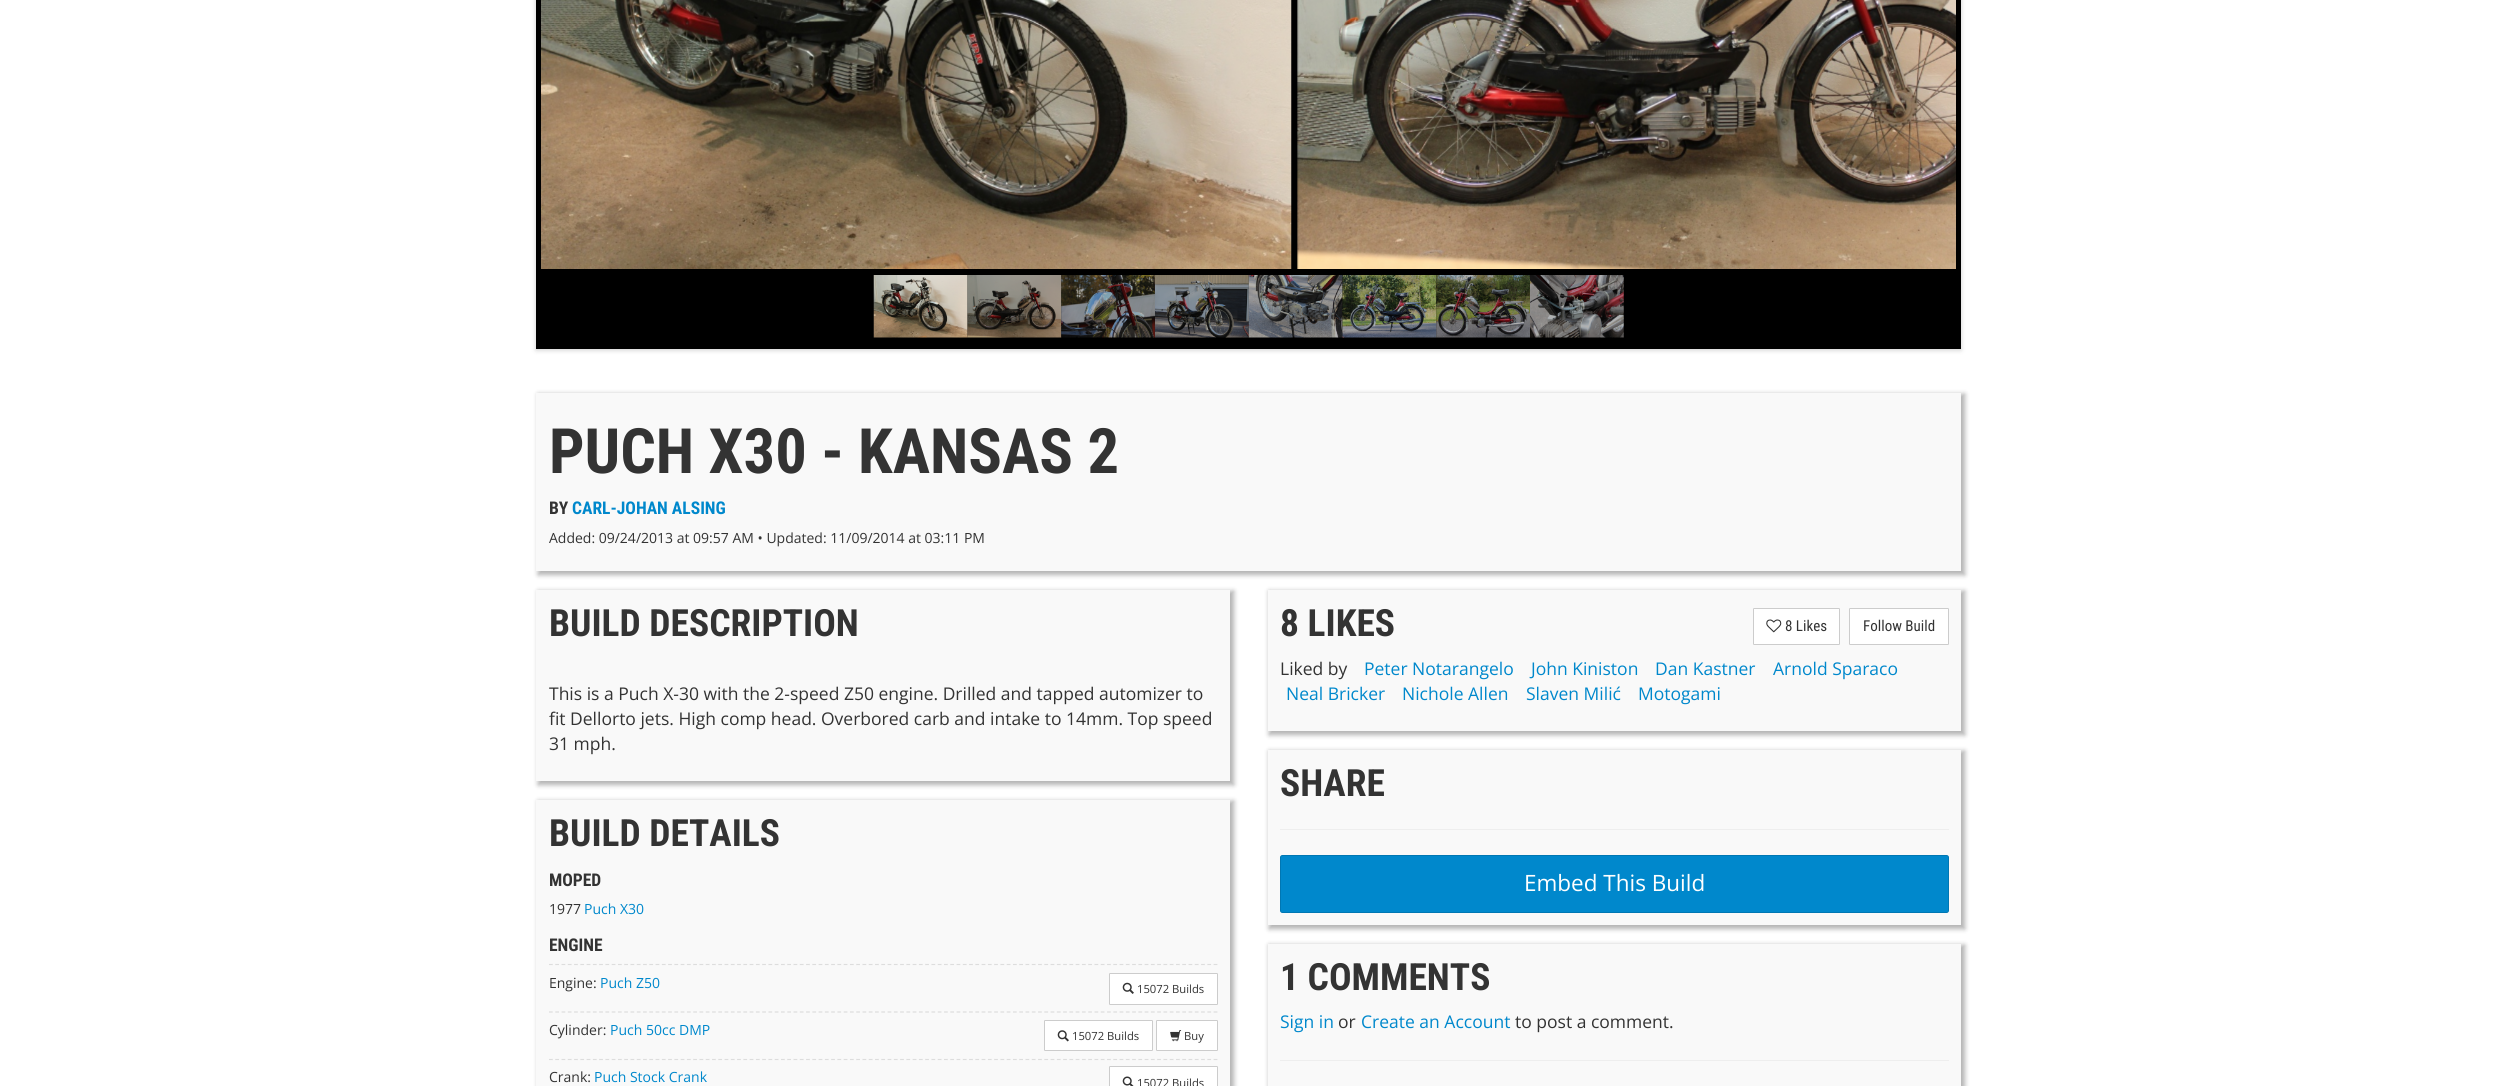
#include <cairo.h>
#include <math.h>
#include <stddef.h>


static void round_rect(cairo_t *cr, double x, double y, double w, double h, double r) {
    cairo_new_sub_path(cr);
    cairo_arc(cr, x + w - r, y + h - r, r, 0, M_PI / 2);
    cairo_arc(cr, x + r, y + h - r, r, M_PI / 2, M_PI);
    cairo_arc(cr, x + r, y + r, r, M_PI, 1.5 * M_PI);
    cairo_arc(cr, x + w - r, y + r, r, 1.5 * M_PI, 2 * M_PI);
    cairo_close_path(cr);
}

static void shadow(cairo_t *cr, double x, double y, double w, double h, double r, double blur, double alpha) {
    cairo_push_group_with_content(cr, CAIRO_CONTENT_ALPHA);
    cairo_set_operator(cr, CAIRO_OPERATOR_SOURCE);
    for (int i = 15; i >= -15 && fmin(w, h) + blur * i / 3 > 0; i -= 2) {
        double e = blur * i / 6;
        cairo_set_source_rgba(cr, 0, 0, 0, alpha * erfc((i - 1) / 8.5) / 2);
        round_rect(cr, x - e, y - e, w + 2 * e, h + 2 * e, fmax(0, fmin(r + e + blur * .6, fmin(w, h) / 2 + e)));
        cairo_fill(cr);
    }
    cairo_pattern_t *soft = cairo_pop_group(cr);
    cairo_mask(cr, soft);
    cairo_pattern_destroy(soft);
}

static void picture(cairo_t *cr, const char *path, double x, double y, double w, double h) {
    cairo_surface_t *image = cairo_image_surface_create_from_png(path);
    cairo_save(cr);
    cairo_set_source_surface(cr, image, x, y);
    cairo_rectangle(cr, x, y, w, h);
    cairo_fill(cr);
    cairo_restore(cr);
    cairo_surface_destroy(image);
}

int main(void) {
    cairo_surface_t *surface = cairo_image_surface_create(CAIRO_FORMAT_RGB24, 2497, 1086);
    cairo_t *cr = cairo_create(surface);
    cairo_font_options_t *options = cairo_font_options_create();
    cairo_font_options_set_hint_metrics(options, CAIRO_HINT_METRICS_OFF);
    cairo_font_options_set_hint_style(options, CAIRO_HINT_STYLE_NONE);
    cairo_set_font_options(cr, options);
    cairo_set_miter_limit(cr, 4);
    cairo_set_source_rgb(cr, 1, 1, 1);
    cairo_paint(cr);
    cairo_set_source_rgb(cr, 0, 0, 0);
    shadow(cr, 536, -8, 1425, 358, 0, 2.5, 0.2);
    cairo_set_source_rgb(cr, 0, 0, 0);
    cairo_rectangle(cr, 536, 0, 1425, 349);
    cairo_fill(cr);
    picture(cr, "img1.png", 541, 0, 751, 269);
    picture(cr, "img2.png", 1297, 0, 659, 269);
    picture(cr, "img3.png", 873, 275, 95, 63);
    picture(cr, "img4.png", 967, 275, 95, 63);
    picture(cr, "img5.png", 1061, 275, 94, 63);
    picture(cr, "img6.png", 1155, 275, 94, 63);
    picture(cr, "img7.png", 1248, 275, 95, 63);
    picture(cr, "img8.png", 1342, 275, 95, 63);
    picture(cr, "img9.png", 1436, 275, 94, 63);
    picture(cr, "img10.png", 1530, 275, 94, 63);
    cairo_set_source_rgb(cr, 0, 0, 0);
    shadow(cr, 538, 394, 1427, 181, 0, 2.5, 0.3);
    cairo_set_source_rgb(cr, 0.973, 0.973, 0.973);
    cairo_rectangle(cr, 536, 393, 1425, 178);
    cairo_fill(cr);
    cairo_select_font_face(cr, "Roboto Condensed", CAIRO_FONT_SLANT_NORMAL, CAIRO_FONT_WEIGHT_BOLD);
    cairo_set_font_size(cr, 62.5);
    cairo_set_source_rgb(cr, 0.2, 0.2, 0.2);
    cairo_move_to(cr, 549, 473);
    cairo_show_text(cr, "PUCH X30 - KANSAS 2");
    cairo_set_font_size(cr, 17.5);
    cairo_move_to(cr, 549, 514);
    cairo_show_text(cr, "BY");
    cairo_set_source_rgb(cr, 0, 0.533, 0.8);
    cairo_move_to(cr, 572, 514);
    cairo_show_text(cr, "CARL-JOHAN ALSING");
    cairo_select_font_face(cr, "Open Sans", CAIRO_FONT_SLANT_NORMAL, CAIRO_FONT_WEIGHT_NORMAL);
    cairo_set_font_size(cr, 14);
    cairo_set_source_rgb(cr, 0.2, 0.2, 0.2);
    cairo_move_to(cr, 549, 543);
    cairo_show_text(cr, "Added: 09/24/2013 at 09:57 AM • Updated: 11/09/2014 at 03:11 PM");
    cairo_set_source_rgb(cr, 0, 0, 0);
    shadow(cr, 538, 591, 696, 194, 0, 2.5, 0.3);
    cairo_set_source_rgb(cr, 0.973, 0.973, 0.973);
    cairo_rectangle(cr, 536, 590, 694, 191);
    cairo_fill(cr);
    cairo_select_font_face(cr, "Roboto Condensed", CAIRO_FONT_SLANT_NORMAL, CAIRO_FONT_WEIGHT_BOLD);
    cairo_set_font_size(cr, 37.5);
    cairo_set_source_rgb(cr, 0.2, 0.2, 0.2);
    cairo_move_to(cr, 549, 636);
    cairo_show_text(cr, "BUILD DESCRIPTION");
    cairo_select_font_face(cr, "Open Sans", CAIRO_FONT_SLANT_NORMAL, CAIRO_FONT_WEIGHT_NORMAL);
    cairo_set_font_size(cr, 17.5);
    cairo_move_to(cr, 549, 700);
    cairo_show_text(cr, "This is a Puch X-30 with the 2-speed Z50 engine. Drilled and tapped automizer to");
    cairo_move_to(cr, 549, 725);
    cairo_show_text(cr, "fit Dellorto jets. High comp head. Overbored carb and intake to 14mm. Top speed");
    cairo_move_to(cr, 549, 750);
    cairo_show_text(cr, "31 mph.");
    cairo_set_source_rgb(cr, 0, 0, 0);
    shadow(cr, 538, 801, 696, 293, 0, 2.5, 0.3);
    cairo_set_source_rgb(cr, 0.973, 0.973, 0.973);
    cairo_rectangle(cr, 536, 800, 694, 286);
    cairo_fill(cr);
    cairo_select_font_face(cr, "Roboto Condensed", CAIRO_FONT_SLANT_NORMAL, CAIRO_FONT_WEIGHT_BOLD);
    cairo_set_font_size(cr, 37.5);
    cairo_set_source_rgb(cr, 0.2, 0.2, 0.2);
    cairo_move_to(cr, 549, 846);
    cairo_show_text(cr, "BUILD DETAILS");
    cairo_set_font_size(cr, 17.5);
    cairo_move_to(cr, 549, 886);
    cairo_show_text(cr, "MOPED");
    cairo_select_font_face(cr, "Open Sans", CAIRO_FONT_SLANT_NORMAL, CAIRO_FONT_WEIGHT_NORMAL);
    cairo_set_font_size(cr, 14);
    cairo_move_to(cr, 549, 914);
    cairo_show_text(cr, "1977");
    cairo_set_source_rgb(cr, 0, 0.533, 0.8);
    cairo_move_to(cr, 584, 914);
    cairo_show_text(cr, "Puch X30");
    cairo_select_font_face(cr, "Roboto Condensed", CAIRO_FONT_SLANT_NORMAL, CAIRO_FONT_WEIGHT_BOLD);
    cairo_set_font_size(cr, 17.5);
    cairo_set_source_rgb(cr, 0.2, 0.2, 0.2);
    cairo_move_to(cr, 549, 951);
    cairo_show_text(cr, "ENGINE");
    cairo_new_path(cr);
    cairo_move_to(cr, 549, 964.5);
    cairo_line_to(cr, 1217.5, 964.5);
    cairo_set_source_rgb(cr, 0.867, 0.867, 0.867);
    cairo_set_line_width(cr, 1.2);
    cairo_set_dash(cr, (double[]){3.75, 2.52}, 2, 0);
    cairo_stroke(cr);
    cairo_new_path(cr);
    cairo_move_to(cr, 549, 1012);
    cairo_line_to(cr, 1217.5, 1012);
    cairo_stroke(cr);
    cairo_select_font_face(cr, "Open Sans", CAIRO_FONT_SLANT_NORMAL, CAIRO_FONT_WEIGHT_NORMAL);
    cairo_set_font_size(cr, 14);
    cairo_set_source_rgb(cr, 0.2, 0.2, 0.2);
    cairo_move_to(cr, 549, 988);
    cairo_show_text(cr, "Engine:");
    cairo_set_source_rgb(cr, 0, 0.533, 0.8);
    cairo_move_to(cr, 600, 988);
    cairo_show_text(cr, "Puch Z50");
    cairo_set_source_rgb(cr, 1, 1, 1);
    round_rect(cr, 1109.5, 973.5, 108, 31, 0.5);
    cairo_fill_preserve(cr);
    cairo_set_source_rgb(cr, 0.8, 0.8, 0.8);
    cairo_set_line_width(cr, 1);
    cairo_set_dash(cr, NULL, 0, 0);
    cairo_stroke(cr);
    picture(cr, "img11.png", 1122, 982, 12, 12);
    cairo_set_font_size(cr, 11.25);
    cairo_set_source_rgb(cr, 0.2, 0.2, 0.2);
    cairo_move_to(cr, 1137, 993);
    cairo_show_text(cr, "15072 Builds");
    cairo_new_path(cr);
    cairo_move_to(cr, 549, 1059.5);
    cairo_line_to(cr, 1217.5, 1059.5);
    cairo_set_source_rgb(cr, 0.867, 0.867, 0.867);
    cairo_set_line_width(cr, 1.2);
    cairo_set_dash(cr, (double[]){3.75, 2.52}, 2, 0);
    cairo_stroke(cr);
    cairo_set_font_size(cr, 14);
    cairo_set_source_rgb(cr, 0.2, 0.2, 0.2);
    cairo_move_to(cr, 549, 1035);
    cairo_show_text(cr, "Cylinder:");
    cairo_set_source_rgb(cr, 0, 0.533, 0.8);
    cairo_move_to(cr, 610, 1035);
    cairo_show_text(cr, "Puch 50cc DMP");
    cairo_set_source_rgb(cr, 1, 1, 1);
    round_rect(cr, 1044.5, 1020.5, 108, 30, 0.5);
    cairo_fill_preserve(cr);
    cairo_set_source_rgb(cr, 0.8, 0.8, 0.8);
    cairo_set_line_width(cr, 1);
    cairo_set_dash(cr, NULL, 0, 0);
    cairo_stroke(cr);
    picture(cr, "img12.png", 1057, 1030, 12, 12);
    cairo_set_font_size(cr, 11.25);
    cairo_set_source_rgb(cr, 0.2, 0.2, 0.2);
    cairo_move_to(cr, 1072, 1040);
    cairo_show_text(cr, "15072 Builds");
    cairo_set_source_rgb(cr, 1, 1, 1);
    round_rect(cr, 1156.5, 1020.5, 61, 30, 0.5);
    cairo_fill_preserve(cr);
    cairo_set_source_rgb(cr, 0.8, 0.8, 0.8);
    cairo_stroke(cr);
    picture(cr, "img13.png", 1170, 1030, 12, 12);
    cairo_set_source_rgb(cr, 0.2, 0.2, 0.2);
    cairo_move_to(cr, 1184, 1040);
    cairo_show_text(cr, "Buy");
    cairo_set_font_size(cr, 14);
    cairo_move_to(cr, 549, 1082);
    cairo_show_text(cr, "Crank:");
    cairo_set_source_rgb(cr, 0, 0.533, 0.8);
    cairo_move_to(cr, 594, 1082);
    cairo_show_text(cr, "Puch Stock Crank");
    cairo_set_source_rgb(cr, 1, 1, 1);
    round_rect(cr, 1109.5, 1066.5, 108, 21, 0.5);
    cairo_fill_preserve(cr);
    cairo_set_source_rgb(cr, 0.8, 0.8, 0.8);
    cairo_stroke(cr);
    picture(cr, "img14.png", 1122, 1076, 12, 10);
    cairo_set_font_size(cr, 11.25);
    cairo_set_source_rgb(cr, 0.2, 0.2, 0.2);
    cairo_move_to(cr, 1137, 1087);
    cairo_show_text(cr, "15072 Builds");
    cairo_set_source_rgb(cr, 0, 0, 0);
    shadow(cr, 1269, 591, 696, 144, 0, 2.5, 0.3);
    cairo_set_source_rgb(cr, 0.973, 0.973, 0.973);
    cairo_rectangle(cr, 1268, 590, 693, 141);
    cairo_fill(cr);
    cairo_select_font_face(cr, "Roboto Condensed", CAIRO_FONT_SLANT_NORMAL, CAIRO_FONT_WEIGHT_BOLD);
    cairo_set_font_size(cr, 37.5);
    cairo_set_source_rgb(cr, 0.2, 0.2, 0.2);
    cairo_move_to(cr, 1280, 636);
    cairo_show_text(cr, "8 LIKES");
    cairo_set_source_rgb(cr, 1, 1, 1);
    round_rect(cr, 1753.5, 608.5, 86, 36, 0.5);
    cairo_fill_preserve(cr);
    cairo_set_source_rgb(cr, 0.8, 0.8, 0.8);
    cairo_stroke(cr);
    picture(cr, "img15.png", 1766, 619, 16, 14);
    cairo_select_font_face(cr, "Roboto Condensed", CAIRO_FONT_SLANT_NORMAL, CAIRO_FONT_WEIGHT_NORMAL);
    cairo_set_font_size(cr, 15);
    cairo_set_source_rgb(cr, 0.2, 0.2, 0.2);
    cairo_move_to(cr, 1785, 631);
    cairo_show_text(cr, "8 Likes");
    cairo_set_source_rgb(cr, 1, 1, 1);
    round_rect(cr, 1849.5, 608.5, 99, 36, 0.5);
    cairo_fill_preserve(cr);
    cairo_set_source_rgb(cr, 0.8, 0.8, 0.8);
    cairo_stroke(cr);
    cairo_set_source_rgb(cr, 0.2, 0.2, 0.2);
    cairo_move_to(cr, 1863, 631);
    cairo_show_text(cr, "Follow Build");
    cairo_select_font_face(cr, "Open Sans", CAIRO_FONT_SLANT_NORMAL, CAIRO_FONT_WEIGHT_NORMAL);
    cairo_set_font_size(cr, 17.5);
    cairo_move_to(cr, 1280, 675);
    cairo_show_text(cr, "Liked by");
    cairo_set_source_rgb(cr, 0, 0.533, 0.8);
    cairo_move_to(cr, 1364, 675);
    cairo_show_text(cr, "Peter Notarangelo");
    cairo_move_to(cr, 1531, 675);
    cairo_show_text(cr, "John Kiniston");
    cairo_move_to(cr, 1655, 675);
    cairo_show_text(cr, "Dan Kastner");
    cairo_move_to(cr, 1773, 675);
    cairo_show_text(cr, "Arnold Sparaco");
    cairo_move_to(cr, 1286, 700);
    cairo_show_text(cr, "Neal Bricker");
    cairo_move_to(cr, 1402, 700);
    cairo_show_text(cr, "Nichole Allen");
    cairo_move_to(cr, 1526, 700);
    cairo_show_text(cr, "Slaven Milić");
    cairo_move_to(cr, 1638, 700);
    cairo_show_text(cr, "Motogami");
    cairo_set_source_rgb(cr, 0, 0, 0);
    shadow(cr, 1269, 751, 696, 178, 0, 2.5, 0.3);
    cairo_set_source_rgb(cr, 0.973, 0.973, 0.973);
    cairo_rectangle(cr, 1268, 750, 693, 175);
    cairo_fill(cr);
    cairo_select_font_face(cr, "Roboto Condensed", CAIRO_FONT_SLANT_NORMAL, CAIRO_FONT_WEIGHT_BOLD);
    cairo_set_font_size(cr, 37.5);
    cairo_set_source_rgb(cr, 0.2, 0.2, 0.2);
    cairo_move_to(cr, 1280, 796);
    cairo_show_text(cr, "SHARE");
    cairo_set_source_rgb(cr, 0.933, 0.933, 0.933);
    cairo_rectangle(cr, 1280, 829, 669, 1);
    cairo_fill(cr);
    cairo_set_source_rgb(cr, 0, 0.533, 0.8);
    round_rect(cr, 1280.5, 855.5, 668, 57, 2);
    cairo_fill_preserve(cr);
    cairo_set_source_rgb(cr, 0, 0.467, 0.702);
    cairo_stroke(cr);
    cairo_select_font_face(cr, "Open Sans", CAIRO_FONT_SLANT_NORMAL, CAIRO_FONT_WEIGHT_NORMAL);
    cairo_set_font_size(cr, 22.5);
    cairo_set_source_rgb(cr, 1, 1, 1);
    cairo_move_to(cr, 1524, 891);
    cairo_show_text(cr, "Embed This Build");
    cairo_set_source_rgb(cr, 0, 0, 0);
    shadow(cr, 1269, 945, 696, 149, 0, 2.5, 0.3);
    cairo_set_source_rgb(cr, 0.973, 0.973, 0.973);
    cairo_rectangle(cr, 1268, 944, 693, 142);
    cairo_fill(cr);
    cairo_select_font_face(cr, "Roboto Condensed", CAIRO_FONT_SLANT_NORMAL, CAIRO_FONT_WEIGHT_BOLD);
    cairo_set_font_size(cr, 37.5);
    cairo_set_source_rgb(cr, 0.2, 0.2, 0.2);
    cairo_move_to(cr, 1280, 990);
    cairo_show_text(cr, "1 COMMENTS");
    cairo_select_font_face(cr, "Open Sans", CAIRO_FONT_SLANT_NORMAL, CAIRO_FONT_WEIGHT_NORMAL);
    cairo_set_font_size(cr, 17.5);
    cairo_set_source_rgb(cr, 0, 0.533, 0.8);
    cairo_move_to(cr, 1280, 1028);
    cairo_show_text(cr, "Sign in");
    cairo_set_source_rgb(cr, 0.2, 0.2, 0.2);
    cairo_move_to(cr, 1338, 1028);
    cairo_show_text(cr, "or");
    cairo_set_source_rgb(cr, 0, 0.533, 0.8);
    cairo_move_to(cr, 1361, 1028);
    cairo_show_text(cr, "Create an Account");
    cairo_set_source_rgb(cr, 0.2, 0.2, 0.2);
    cairo_move_to(cr, 1515, 1028);
    cairo_show_text(cr, "to post a comment.");
    cairo_set_source_rgb(cr, 0.933, 0.933, 0.933);
    cairo_rectangle(cr, 1280, 1060, 669, 1);
    cairo_fill(cr);
    cairo_surface_write_to_png(surface, "page.png");
    cairo_font_options_destroy(options);
    cairo_destroy(cr);
    cairo_surface_destroy(surface);
    return 0;
}
